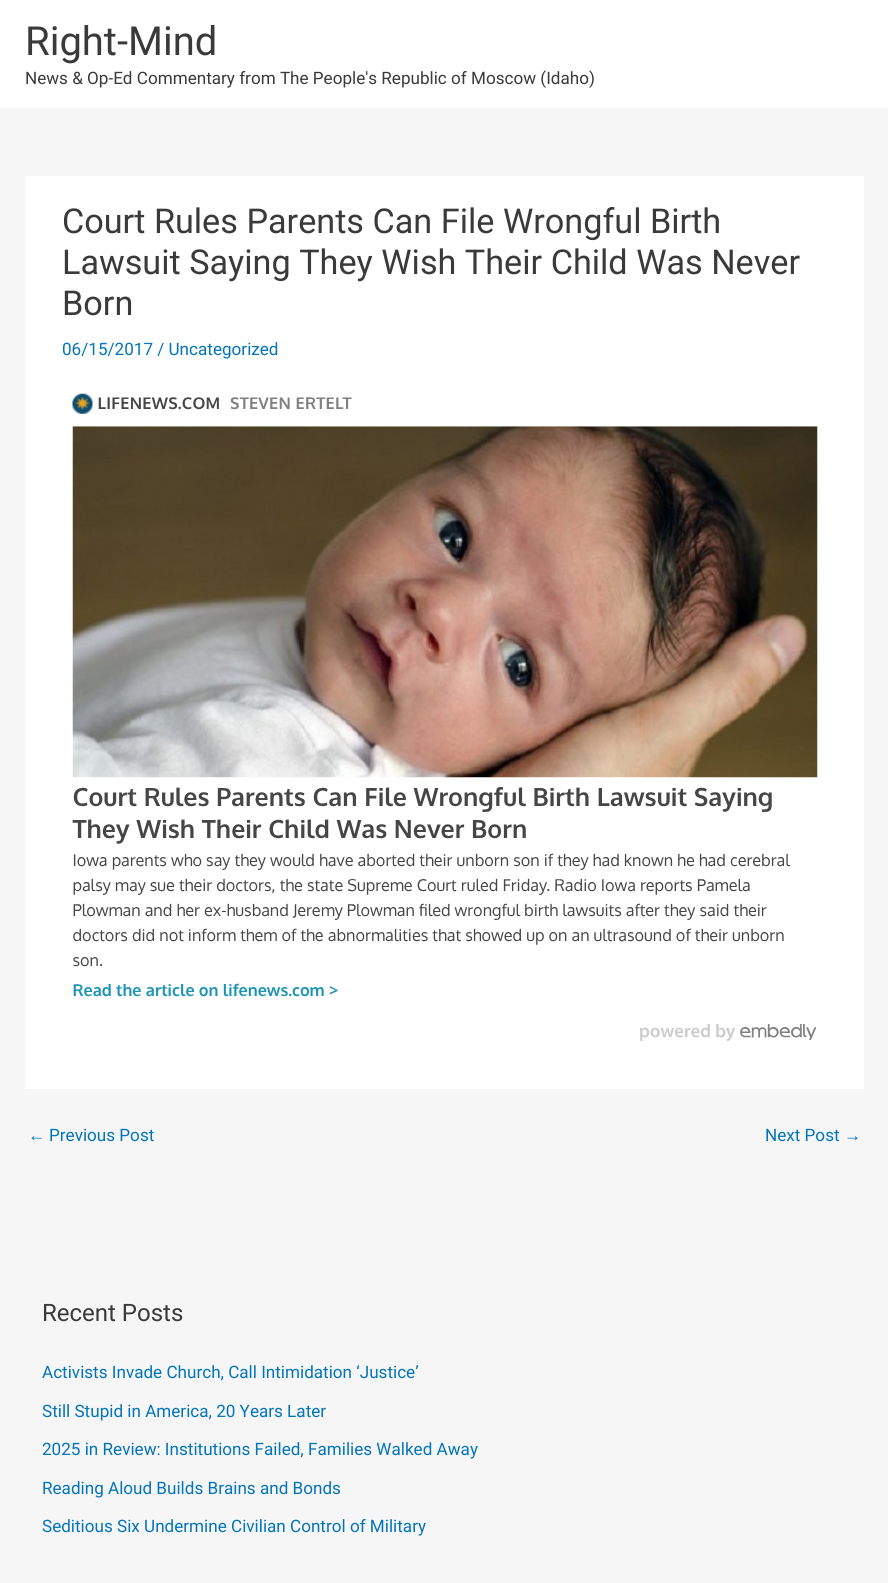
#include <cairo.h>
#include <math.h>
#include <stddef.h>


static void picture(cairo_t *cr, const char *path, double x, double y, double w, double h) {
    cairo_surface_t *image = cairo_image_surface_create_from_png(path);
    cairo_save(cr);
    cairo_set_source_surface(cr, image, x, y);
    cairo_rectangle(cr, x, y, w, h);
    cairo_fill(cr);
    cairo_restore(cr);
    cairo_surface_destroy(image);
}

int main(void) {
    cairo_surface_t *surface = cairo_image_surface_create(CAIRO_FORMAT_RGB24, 888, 1583);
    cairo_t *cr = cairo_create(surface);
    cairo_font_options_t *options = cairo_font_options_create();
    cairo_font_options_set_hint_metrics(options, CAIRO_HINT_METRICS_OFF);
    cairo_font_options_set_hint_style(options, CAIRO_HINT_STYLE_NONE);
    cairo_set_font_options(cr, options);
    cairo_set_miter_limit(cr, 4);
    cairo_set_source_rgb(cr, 0.961, 0.961, 0.961);
    cairo_paint(cr);
    cairo_set_source_rgb(cr, 1, 1, 1);
    cairo_rectangle(cr, 0, 0, 888, 108);
    cairo_fill(cr);
    cairo_select_font_face(cr, "Roboto", CAIRO_FONT_SLANT_NORMAL, CAIRO_FONT_WEIGHT_NORMAL);
    cairo_set_font_size(cr, 40);
    cairo_set_source_rgb(cr, 0.227, 0.227, 0.227);
    cairo_move_to(cr, 25, 55);
    cairo_show_text(cr, "Right-Mind");
    cairo_set_font_size(cr, 17.1);
    cairo_move_to(cr, 25, 84);
    cairo_show_text(cr, "News & Op-Ed Commentary from The People's Republic of Moscow (Idaho)");
    cairo_set_source_rgb(cr, 1, 1, 1);
    cairo_rectangle(cr, 25, 176, 839, 913);
    cairo_fill(cr);
    cairo_set_font_size(cr, 34.2);
    cairo_set_source_rgb(cr, 0.227, 0.227, 0.227);
    cairo_move_to(cr, 62, 233);
    cairo_show_text(cr, "Court Rules Parents Can File Wrongful Birth");
    cairo_move_to(cr, 62, 274);
    cairo_show_text(cr, "Lawsuit Saying They Wish Their Child Was Never");
    cairo_move_to(cr, 62, 315);
    cairo_show_text(cr, "Born");
    cairo_set_font_size(cr, 17.1);
    cairo_set_source_rgb(cr, 0.008, 0.455, 0.745);
    cairo_move_to(cr, 62, 355);
    cairo_show_text(cr, "06/15/2017 / Uncategorized");
    picture(cr, "img1.png", 72, 393, 746, 648);
    cairo_select_font_face(cr, "Liberation Sans", CAIRO_FONT_SLANT_NORMAL, CAIRO_FONT_WEIGHT_NORMAL);
    cairo_move_to(cr, 28, 1141);
    cairo_show_text(cr, "←");
    cairo_select_font_face(cr, "Roboto", CAIRO_FONT_SLANT_NORMAL, CAIRO_FONT_WEIGHT_NORMAL);
    cairo_move_to(cr, 49, 1141);
    cairo_show_text(cr, "Previous Post");
    cairo_move_to(cr, 765, 1141);
    cairo_show_text(cr, "Next Post");
    cairo_select_font_face(cr, "Liberation Sans", CAIRO_FONT_SLANT_NORMAL, CAIRO_FONT_WEIGHT_NORMAL);
    cairo_move_to(cr, 844, 1141);
    cairo_show_text(cr, "→");
    cairo_select_font_face(cr, "Roboto", CAIRO_FONT_SLANT_NORMAL, CAIRO_FONT_WEIGHT_NORMAL);
    cairo_set_font_size(cr, 24);
    cairo_set_source_rgb(cr, 0.227, 0.227, 0.227);
    cairo_move_to(cr, 42, 1321);
    cairo_show_text(cr, "Recent Posts");
    cairo_set_font_size(cr, 17.1);
    cairo_set_source_rgb(cr, 0.008, 0.455, 0.745);
    cairo_move_to(cr, 42, 1378);
    cairo_show_text(cr, "Activists Invade Church, Call Intimidation ‘Justice’");
    cairo_move_to(cr, 42, 1417);
    cairo_show_text(cr, "Still Stupid in America, 20 Years Later");
    cairo_move_to(cr, 42, 1455);
    cairo_show_text(cr, "2025 in Review: Institutions Failed, Families Walked Away");
    cairo_move_to(cr, 42, 1494);
    cairo_show_text(cr, "Reading Aloud Builds Brains and Bonds");
    cairo_move_to(cr, 42, 1532);
    cairo_show_text(cr, "Seditious Six Undermine Civilian Control of Military");
    cairo_surface_write_to_png(surface, "page.png");
    cairo_font_options_destroy(options);
    cairo_destroy(cr);
    cairo_surface_destroy(surface);
    return 0;
}
